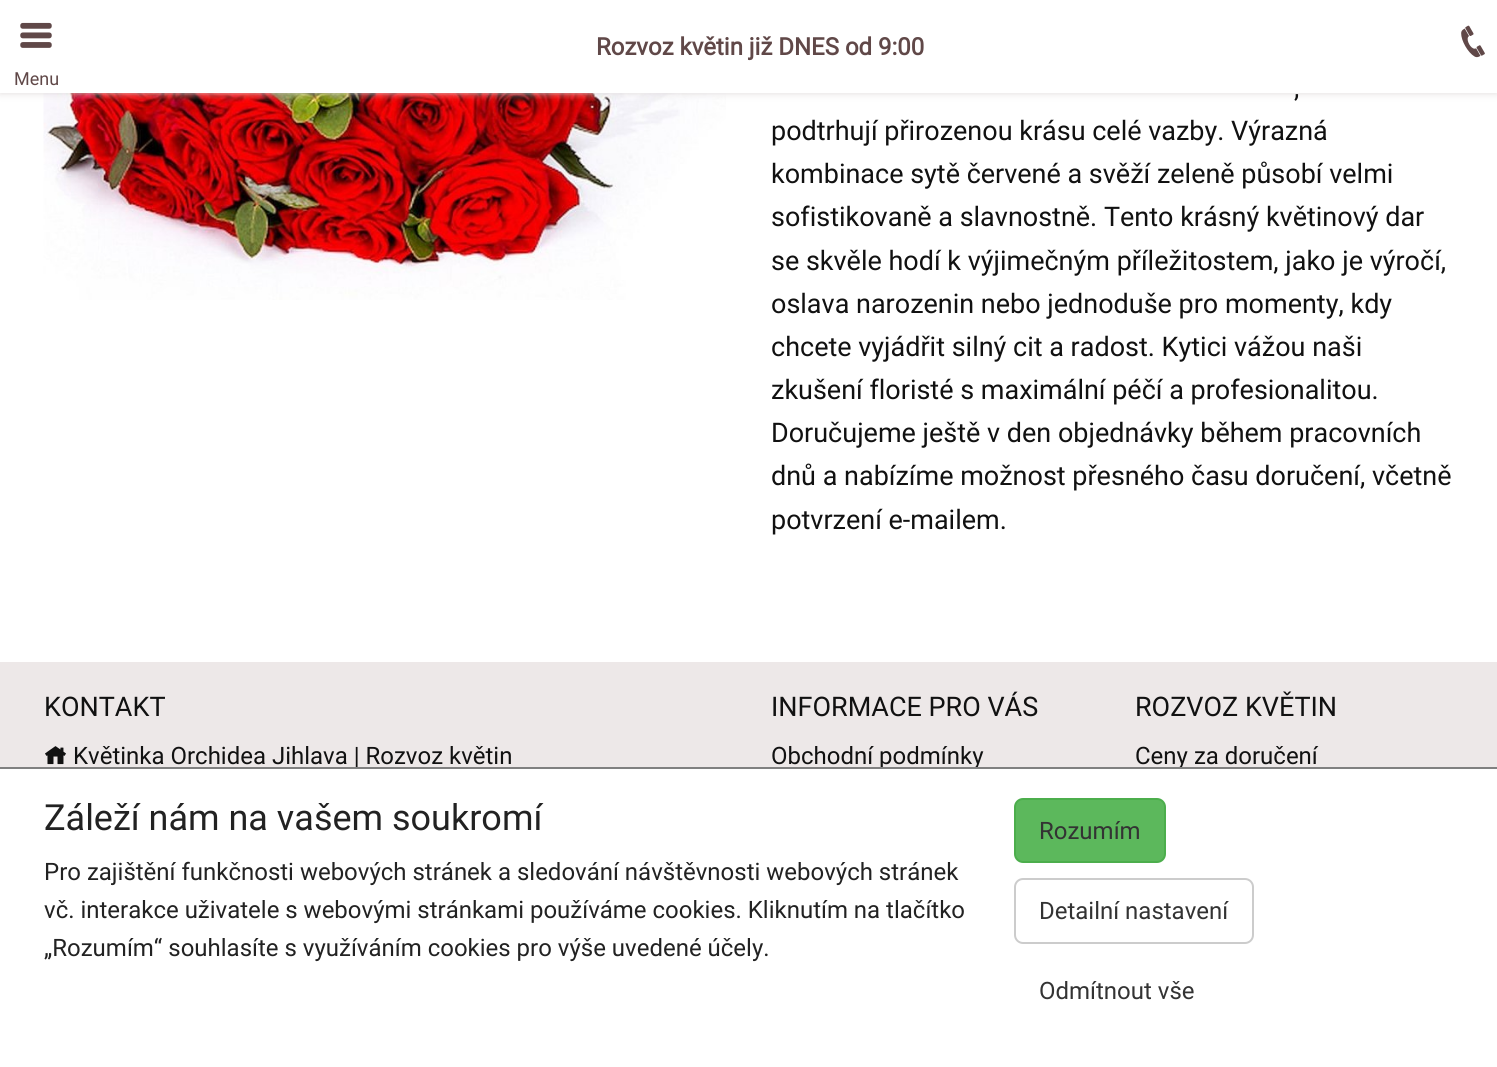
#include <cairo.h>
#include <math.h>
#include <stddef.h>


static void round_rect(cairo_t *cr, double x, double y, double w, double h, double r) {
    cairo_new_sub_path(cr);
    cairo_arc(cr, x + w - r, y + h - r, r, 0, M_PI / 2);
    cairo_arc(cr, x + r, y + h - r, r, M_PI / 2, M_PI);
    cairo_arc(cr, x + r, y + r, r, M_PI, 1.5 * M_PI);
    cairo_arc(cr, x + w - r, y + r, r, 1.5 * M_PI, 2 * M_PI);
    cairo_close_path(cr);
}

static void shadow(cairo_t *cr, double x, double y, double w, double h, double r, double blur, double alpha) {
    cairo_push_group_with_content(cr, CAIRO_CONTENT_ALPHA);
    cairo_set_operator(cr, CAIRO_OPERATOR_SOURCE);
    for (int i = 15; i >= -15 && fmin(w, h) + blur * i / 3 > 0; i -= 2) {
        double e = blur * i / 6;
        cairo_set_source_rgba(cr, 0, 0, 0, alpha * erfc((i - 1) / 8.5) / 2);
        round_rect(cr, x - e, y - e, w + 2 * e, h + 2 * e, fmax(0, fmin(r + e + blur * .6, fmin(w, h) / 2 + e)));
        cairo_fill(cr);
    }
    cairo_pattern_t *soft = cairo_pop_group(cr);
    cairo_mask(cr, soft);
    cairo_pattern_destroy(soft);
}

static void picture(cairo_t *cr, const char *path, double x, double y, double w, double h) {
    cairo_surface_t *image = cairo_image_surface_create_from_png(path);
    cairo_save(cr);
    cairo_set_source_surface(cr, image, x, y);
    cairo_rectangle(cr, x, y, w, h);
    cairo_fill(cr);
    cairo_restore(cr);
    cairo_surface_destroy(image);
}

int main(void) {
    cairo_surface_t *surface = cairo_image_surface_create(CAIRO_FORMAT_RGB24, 1497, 1067);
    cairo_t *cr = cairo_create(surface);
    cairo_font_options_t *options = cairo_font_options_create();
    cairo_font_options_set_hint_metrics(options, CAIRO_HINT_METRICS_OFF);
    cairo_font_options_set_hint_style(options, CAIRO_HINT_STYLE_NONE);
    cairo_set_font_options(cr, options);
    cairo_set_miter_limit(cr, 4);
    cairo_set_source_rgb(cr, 1, 1, 1);
    cairo_paint(cr);
    picture(cr, "img3.png", 43, 93, 683, 207);
    cairo_set_source_rgb(cr, 0.875, 0.855, 0.855);
    shadow(cr, 0, 0, 1497, 93, 0, 4, 1);
    cairo_set_source_rgb(cr, 1, 1, 1);
    cairo_rectangle(cr, 0, 0, 1497, 93);
    cairo_fill(cr);
    cairo_select_font_face(cr, "Roboto", CAIRO_FONT_SLANT_NORMAL, CAIRO_FONT_WEIGHT_BOLD);
    cairo_set_font_size(cr, 24);
    cairo_set_source_rgb(cr, 0.376, 0.282, 0.282);
    cairo_move_to(cr, 596, 55);
    cairo_show_text(cr, "Rozvoz květin již DNES od 9:00");
    picture(cr, "img1.png", 1461, 25, 24, 33);
    picture(cr, "img2.png", 20, 22, 32, 26);
    cairo_select_font_face(cr, "Roboto", CAIRO_FONT_SLANT_NORMAL, CAIRO_FONT_WEIGHT_NORMAL);
    cairo_set_font_size(cr, 18);
    cairo_move_to(cr, 14, 85);
    cairo_show_text(cr, "Menu");
    cairo_set_font_size(cr, 27);
    cairo_set_source_rgb(cr, 0.067, 0.067, 0.067);
    cairo_move_to(cr, 1294, 97);
    cairo_show_text(cr, ",");
    cairo_move_to(cr, 771, 140);
    cairo_show_text(cr, "podtrhují přirozenou krásu celé vazby. Výrazná");
    cairo_move_to(cr, 771, 183);
    cairo_show_text(cr, "kombinace sytě červené a svěží zeleně působí velmi");
    cairo_move_to(cr, 771, 226);
    cairo_show_text(cr, "sofistikovaně a slavnostně. Tento krásný květinový dar");
    cairo_move_to(cr, 771, 270);
    cairo_show_text(cr, "se skvěle hodí k výjimečným příležitostem, jako je výročí,");
    cairo_move_to(cr, 771, 313);
    cairo_show_text(cr, "oslava narozenin nebo jednoduše pro momenty, kdy");
    cairo_move_to(cr, 771, 356);
    cairo_show_text(cr, "chcete vyjádřit silný cit a radost. Kytici vážou naši");
    cairo_move_to(cr, 771, 399);
    cairo_show_text(cr, "zkušení floristé s maximální péčí a profesionalitou.");
    cairo_move_to(cr, 771, 442);
    cairo_show_text(cr, "Doručujeme ještě v den objednávky během pracovních");
    cairo_move_to(cr, 771, 485);
    cairo_show_text(cr, "dnů a nabízíme možnost přesného času doručení, včetně");
    cairo_move_to(cr, 771, 529);
    cairo_show_text(cr, "potvrzení e-mailem.");
    cairo_set_source_rgb(cr, 0.929, 0.91, 0.91);
    cairo_rectangle(cr, 0, 662, 1497, 105);
    cairo_fill(cr);
    cairo_set_source_rgb(cr, 0.067, 0.067, 0.067);
    cairo_move_to(cr, 44, 716);
    cairo_show_text(cr, "KONTAKT");
    picture(cr, "img4.png", 45, 746, 21, 19);
    cairo_set_font_size(cr, 24);
    cairo_move_to(cr, 73, 764);
    cairo_show_text(cr, "Květinka Orchidea Jihlava | Rozvoz květin");
    cairo_set_font_size(cr, 27);
    cairo_move_to(cr, 771, 716);
    cairo_show_text(cr, "INFORMACE PRO VÁS");
    cairo_set_font_size(cr, 24);
    cairo_move_to(cr, 771, 764);
    cairo_show_text(cr, "Obchodní podmínky");
    cairo_set_font_size(cr, 27);
    cairo_move_to(cr, 1135, 716);
    cairo_show_text(cr, "ROZVOZ KVĚTIN");
    cairo_set_font_size(cr, 24);
    cairo_move_to(cr, 1135, 764);
    cairo_show_text(cr, "Ceny za doručení");
    cairo_set_source_rgb(cr, 1, 1, 1);
    cairo_rectangle(cr, 973, 769, 206, 1);
    cairo_fill(cr);
    cairo_set_source_rgb(cr, 0.502, 0.502, 0.502);
    cairo_rectangle(cr, 0, 767, 1497, 2);
    cairo_fill(cr);
    cairo_set_font_size(cr, 36);
    cairo_set_source_rgb(cr, 0.133, 0.133, 0.133);
    cairo_move_to(cr, 44, 830);
    cairo_show_text(cr, "Záleží nám na vašem soukromí");
    cairo_set_font_size(cr, 24);
    cairo_move_to(cr, 44, 880);
    cairo_show_text(cr, "Pro zajištění funkčnosti webových stránek a sledování návštěvnosti webových stránek");
    cairo_move_to(cr, 44, 918);
    cairo_show_text(cr, "vč. interakce uživatele s webovými stránkami používáme cookies. Kliknutím na tlačítko");
    cairo_move_to(cr, 44, 956);
    cairo_show_text(cr, "„Rozumím“ souhlasíte s využíváním cookies pro výše uvedené účely.");
    cairo_set_source_rgb(cr, 0.361, 0.722, 0.361);
    round_rect(cr, 1015, 799, 150, 63, 8);
    cairo_fill_preserve(cr);
    cairo_set_source_rgb(cr, 0.298, 0.682, 0.298);
    cairo_stroke(cr);
    cairo_set_source_rgb(cr, 0.2, 0.2, 0.2);
    cairo_move_to(cr, 1039, 839);
    cairo_show_text(cr, "Rozumím");
    round_rect(cr, 1015, 879, 238, 64, 8);
    cairo_set_source_rgb(cr, 0.8, 0.8, 0.8);
    cairo_stroke(cr);
    cairo_set_source_rgb(cr, 0.2, 0.2, 0.2);
    cairo_move_to(cr, 1039, 919);
    cairo_show_text(cr, "Detailní nastavení");
    cairo_move_to(cr, 1039, 999);
    cairo_show_text(cr, "Odmítnout vše");
    cairo_surface_write_to_png(surface, "page.png");
    cairo_font_options_destroy(options);
    cairo_destroy(cr);
    cairo_surface_destroy(surface);
    return 0;
}
